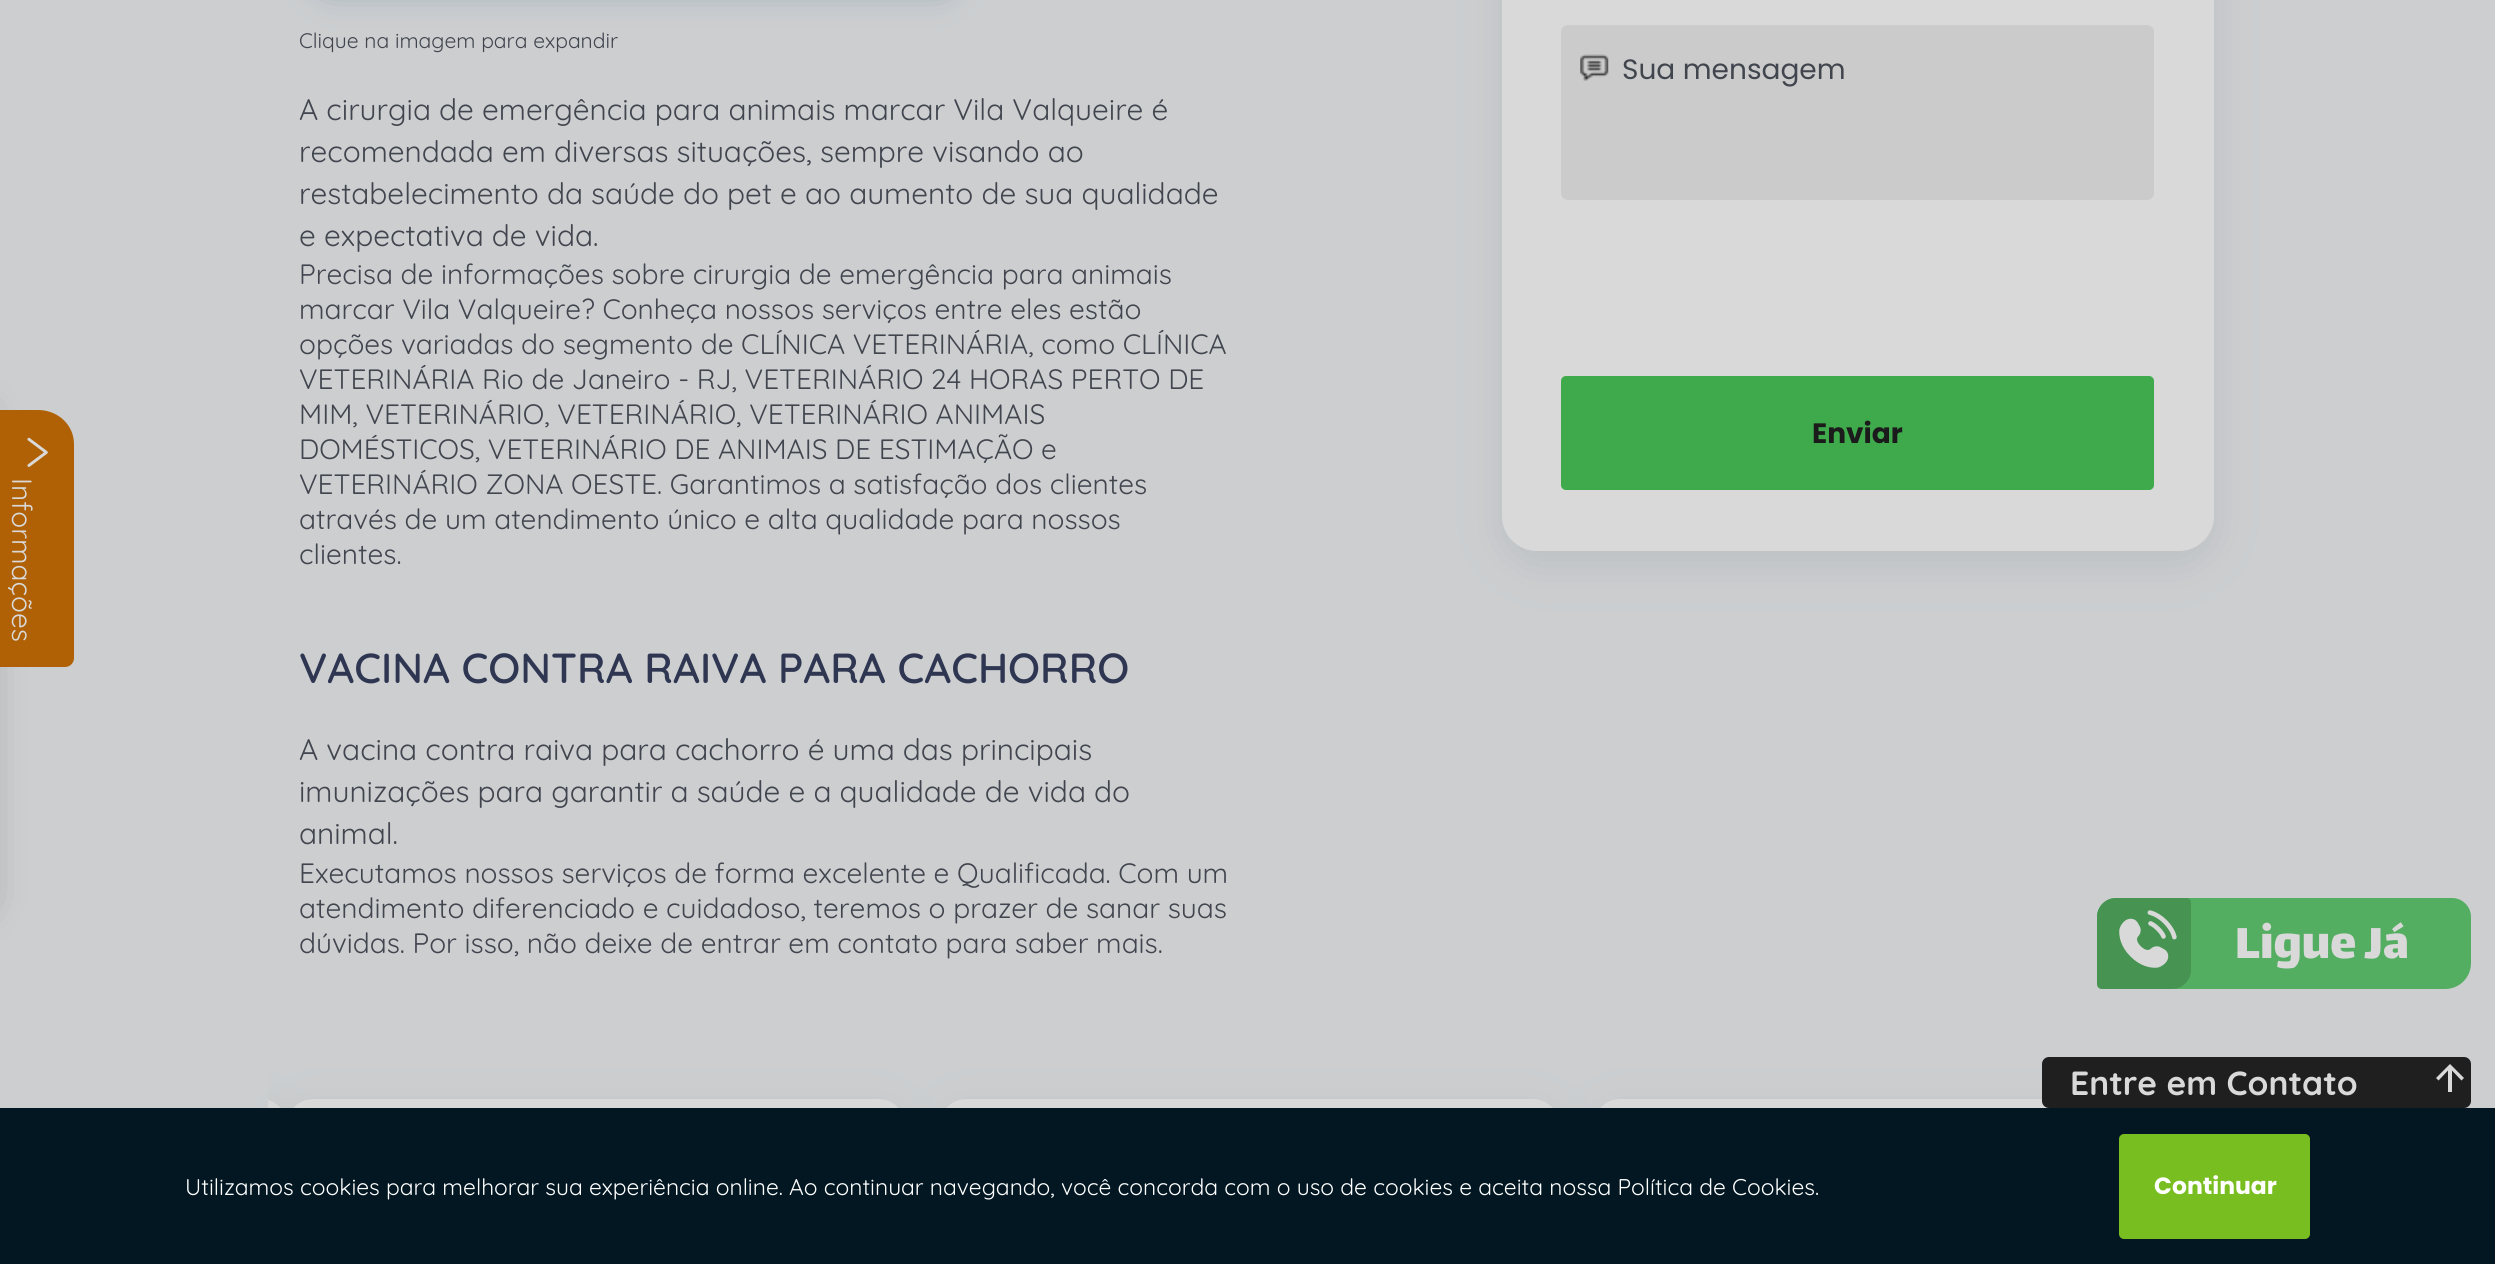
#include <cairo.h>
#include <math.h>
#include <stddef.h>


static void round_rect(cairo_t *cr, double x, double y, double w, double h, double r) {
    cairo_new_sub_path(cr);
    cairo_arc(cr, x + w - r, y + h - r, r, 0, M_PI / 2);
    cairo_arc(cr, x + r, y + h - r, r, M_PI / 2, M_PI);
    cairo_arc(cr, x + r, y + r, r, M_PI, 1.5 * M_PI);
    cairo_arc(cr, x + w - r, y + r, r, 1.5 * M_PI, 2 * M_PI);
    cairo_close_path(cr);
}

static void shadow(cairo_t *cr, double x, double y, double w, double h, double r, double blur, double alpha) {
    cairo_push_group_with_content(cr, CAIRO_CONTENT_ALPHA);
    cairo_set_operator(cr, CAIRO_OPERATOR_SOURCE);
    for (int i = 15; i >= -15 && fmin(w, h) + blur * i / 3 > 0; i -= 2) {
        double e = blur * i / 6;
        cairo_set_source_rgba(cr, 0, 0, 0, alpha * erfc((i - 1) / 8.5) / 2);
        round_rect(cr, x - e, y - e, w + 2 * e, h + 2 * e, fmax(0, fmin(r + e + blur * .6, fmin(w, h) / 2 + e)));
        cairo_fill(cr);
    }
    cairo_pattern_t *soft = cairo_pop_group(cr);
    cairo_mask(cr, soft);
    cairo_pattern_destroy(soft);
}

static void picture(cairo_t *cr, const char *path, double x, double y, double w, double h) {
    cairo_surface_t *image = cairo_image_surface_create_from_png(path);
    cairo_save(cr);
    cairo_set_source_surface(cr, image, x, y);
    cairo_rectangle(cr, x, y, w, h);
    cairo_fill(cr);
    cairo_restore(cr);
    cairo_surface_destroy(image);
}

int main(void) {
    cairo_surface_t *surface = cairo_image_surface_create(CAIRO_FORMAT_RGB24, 2495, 1264);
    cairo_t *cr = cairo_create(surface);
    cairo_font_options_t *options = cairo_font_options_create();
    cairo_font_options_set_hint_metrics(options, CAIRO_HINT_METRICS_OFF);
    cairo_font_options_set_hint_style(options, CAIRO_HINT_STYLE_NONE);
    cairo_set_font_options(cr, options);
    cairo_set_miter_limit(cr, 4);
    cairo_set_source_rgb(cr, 0.8, 0.808, 0.816);
    cairo_paint(cr);
    cairo_set_source_rgb(cr, 0.455, 0.549, 0.635);
    shadow(cr, 310, -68, 651, 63, 26, 14, 0.48);
    cairo_select_font_face(cr, "Quicksand", CAIRO_FONT_SLANT_NORMAL, CAIRO_FONT_WEIGHT_NORMAL);
    cairo_set_font_size(cr, 21);
    cairo_set_source_rgb(cr, 0.255, 0.271, 0.306);
    cairo_move_to(cr, 299, 48);
    cairo_show_text(cr, "Clique na imagem para expandir");
    cairo_set_font_size(cr, 29.75);
    cairo_move_to(cr, 299, 120);
    cairo_show_text(cr, "A cirurgia de emergência para animais marcar Vila Valqueire é");
    cairo_move_to(cr, 299, 162);
    cairo_show_text(cr, "recomendada em diversas situações, sempre visando ao");
    cairo_move_to(cr, 299, 204);
    cairo_show_text(cr, "restabelecimento da saúde do pet e ao aumento de sua qualidade");
    cairo_move_to(cr, 299, 246);
    cairo_show_text(cr, "e expectativa de vida.");
    cairo_set_font_size(cr, 28);
    cairo_move_to(cr, 299, 284);
    cairo_show_text(cr, "Precisa de informações sobre cirurgia de emergência para animais");
    cairo_move_to(cr, 299, 319);
    cairo_show_text(cr, "marcar Vila Valqueire? Conheça nossos serviços entre eles estão");
    cairo_move_to(cr, 299, 354);
    cairo_show_text(cr, "opções variadas do segmento de CLÍNICA VETERINÁRIA, como CLÍNICA");
    cairo_move_to(cr, 299, 389);
    cairo_show_text(cr, "VETERINÁRIA Rio de Janeiro - RJ, VETERINÁRIO 24 HORAS PERTO DE");
    cairo_move_to(cr, 299, 424);
    cairo_show_text(cr, "MIM, VETERINÁRIO, VETERINÁRIO, VETERINÁRIO ANIMAIS");
    cairo_move_to(cr, 299, 459);
    cairo_show_text(cr, "DOMÉSTICOS, VETERINÁRIO DE ANIMAIS DE ESTIMAÇÃO e");
    cairo_move_to(cr, 299, 494);
    cairo_show_text(cr, "VETERINÁRIO ZONA OESTE. Garantimos a satisfação dos clientes");
    cairo_move_to(cr, 299, 529);
    cairo_show_text(cr, "através de um atendimento único e alta qualidade para nossos");
    cairo_move_to(cr, 299, 564);
    cairo_show_text(cr, "clientes.");
    cairo_select_font_face(cr, "Quicksand SemiBold", CAIRO_FONT_SLANT_NORMAL, CAIRO_FONT_WEIGHT_NORMAL);
    cairo_set_font_size(cr, 42);
    cairo_set_source_rgb(cr, 0.18, 0.212, 0.318);
    cairo_move_to(cr, 299, 683);
    cairo_show_text(cr, "VACINA CONTRA RAIVA PARA CACHORRO");
    cairo_select_font_face(cr, "Quicksand", CAIRO_FONT_SLANT_NORMAL, CAIRO_FONT_WEIGHT_NORMAL);
    cairo_set_font_size(cr, 29.75);
    cairo_set_source_rgb(cr, 0.255, 0.271, 0.306);
    cairo_move_to(cr, 299, 760);
    cairo_show_text(cr, "A vacina contra raiva para cachorro é uma das principais");
    cairo_move_to(cr, 299, 802);
    cairo_show_text(cr, "imunizações para garantir a saúde e a qualidade de vida do");
    cairo_move_to(cr, 299, 844);
    cairo_show_text(cr, "animal.");
    cairo_set_font_size(cr, 28);
    cairo_move_to(cr, 299, 883);
    cairo_show_text(cr, "Executamos nossos serviços de forma excelente e Qualificada. Com um");
    cairo_move_to(cr, 299, 918);
    cairo_show_text(cr, "atendimento diferenciado e cuidadoso, teremos o prazer de sanar suas");
    cairo_move_to(cr, 299, 953);
    cairo_show_text(cr, "dúvidas. Por isso, não deixe de entrar em contato para saber mais.");
    cairo_set_source_rgb(cr, 0.498, 0.522, 0.549);
    shadow(cr, 1502, -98, 712, 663, 35, 21, 0.2);
    cairo_set_source_rgb(cr, 0.851, 0.851, 0.851);
    round_rect(cr, 1502, -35, 712, 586, 35);
    cairo_fill(cr);
    cairo_set_source_rgb(cr, 0.796, 0.796, 0.796);
    round_rect(cr, 1561, 25, 593, 175, 7);
    cairo_fill(cr);
    picture(cr, "img1.png", 1580, 54, 29, 27);
    cairo_select_font_face(cr, "Poppins", CAIRO_FONT_SLANT_NORMAL, CAIRO_FONT_WEIGHT_NORMAL);
    cairo_set_source_rgb(cr, 0.255, 0.271, 0.306);
    cairo_move_to(cr, 1622, 79);
    cairo_show_text(cr, "Sua mensagem");
    cairo_set_source_rgb(cr, 0.243, 0.667, 0.294);
    round_rect(cr, 1561, 376, 593, 114, 5);
    cairo_fill(cr);
    cairo_select_font_face(cr, "Poppins", CAIRO_FONT_SLANT_NORMAL, CAIRO_FONT_WEIGHT_BOLD);
    cairo_set_source_rgb(cr, 0.106, 0.106, 0.106);
    cairo_move_to(cr, 1812, 443);
    cairo_show_text(cr, "Enviar");
    cairo_save(cr);
    cairo_rectangle(cr, 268, 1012, 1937, 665);
    cairo_clip(cr);
    cairo_set_source_rgb(cr, 0.498, 0.522, 0.549);
    shadow(cr, -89, 1113, 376, 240, 26, 21, 0.2);
    cairo_restore(cr);
    cairo_set_source_rgb(cr, 0.851, 0.851, 0.851);
    cairo_new_path(cr);
    cairo_move_to(cr, 268, 1099);
    cairo_line_to(cr, 261, 1099);
    cairo_curve_to(cr, 275.5, 1099, 287, 1110.5, 287, 1125);
    cairo_line_to(cr, 287, 1264);
    cairo_curve_to(cr, 287, 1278.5, 275.5, 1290, 261, 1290);
    cairo_line_to(cr, 268, 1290);
    cairo_close_path(cr);
    cairo_fill(cr);
    cairo_set_source_rgb(cr, 0.498, 0.522, 0.549);
    shadow(cr, 287, 1113, 618, 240, 26, 21, 0.2);
    cairo_set_source_rgb(cr, 0.851, 0.851, 0.851);
    round_rect(cr, 287, 1099, 618, 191, 26);
    cairo_fill(cr);
    cairo_set_source_rgb(cr, 0.498, 0.522, 0.549);
    shadow(cr, 940, 1113, 619, 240, 26, 21, 0.2);
    cairo_set_source_rgb(cr, 0.851, 0.851, 0.851);
    round_rect(cr, 940, 1099, 619, 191, 26);
    cairo_fill(cr);
    cairo_set_source_rgb(cr, 0.498, 0.522, 0.549);
    shadow(cr, 1594, 1113, 618, 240, 26, 21, 0.2);
    cairo_set_source_rgb(cr, 0.851, 0.851, 0.851);
    round_rect(cr, 1594, 1099, 618, 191, 26);
    cairo_fill(cr);
    cairo_set_source_rgb(cr, 0.443, 0.443, 0.443);
    shadow(cr, -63, 420, 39, 480, 0, 21, 1);
    cairo_set_source_rgb(cr, 0.69, 0.38, 0.024);
    cairo_new_path(cr);
    cairo_move_to(cr, 74, 444);
    cairo_line_to(cr, 74, 658);
    cairo_curve_to(cr, 74, 663, 70, 667, 65, 667);
    cairo_line_to(cr, -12, 667);
    cairo_line_to(cr, -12, 410);
    cairo_line_to(cr, 38, 410);
    cairo_curve_to(cr, 58, 410, 74, 425, 74, 444);
    cairo_close_path(cr);
    cairo_fill(cr);
    picture(cr, "img2.png", 27, 437, 21, 30);
    cairo_select_font_face(cr, "Quicksand", CAIRO_FONT_SLANT_NORMAL, CAIRO_FONT_WEIGHT_NORMAL);
    cairo_set_source_rgb(cr, 0.851, 0.851, 0.851);
    cairo_save(cr);
    cairo_translate(cr, 12, 478);
    cairo_rotate(cr, 90 * M_PI / 180);
    cairo_move_to(cr, 0, 0);
    cairo_show_text(cr, "Informações");
    cairo_restore(cr);
    cairo_set_source_rgb(cr, 0.122, 0.122, 0.122);
    round_rect(cr, 2042, 1057, 429, 51, 7);
    cairo_fill(cr);
    cairo_select_font_face(cr, "Quicksand", CAIRO_FONT_SLANT_NORMAL, CAIRO_FONT_WEIGHT_BOLD);
    cairo_set_font_size(cr, 33.5);
    cairo_set_source_rgb(cr, 0.851, 0.851, 0.851);
    cairo_move_to(cr, 2070, 1095);
    cairo_show_text(cr, "Entre em Contato");
    cairo_new_path(cr);
    cairo_move_to(cr, 2436, 1078);
    cairo_line_to(cr, 2438.5, 1080.5);
    cairo_line_to(cr, 2448, 1070.5);
    cairo_line_to(cr, 2448, 1092);
    cairo_line_to(cr, 2452, 1092);
    cairo_line_to(cr, 2452, 1070.5);
    cairo_line_to(cr, 2461.5, 1080.5);
    cairo_line_to(cr, 2464, 1078);
    cairo_line_to(cr, 2450, 1064);
    cairo_close_path(cr);
    cairo_fill(cr);
    cairo_set_source_rgb(cr, 0.329, 0.682, 0.38);
    cairo_new_path(cr);
    cairo_move_to(cr, 2116, 898);
    cairo_line_to(cr, 2452, 898);
    cairo_curve_to(cr, 2462.5, 898, 2471, 906.5, 2471, 917);
    cairo_line_to(cr, 2471, 963);
    cairo_curve_to(cr, 2471, 977.5, 2459.5, 989, 2445, 989);
    cairo_line_to(cr, 2116, 989);
    cairo_curve_to(cr, 2105.5, 989, 2097, 980.5, 2097, 970);
    cairo_line_to(cr, 2097, 917);
    cairo_curve_to(cr, 2097, 906.5, 2105.5, 898, 2116, 898);
    cairo_close_path(cr);
    cairo_fill(cr);
    cairo_set_source_rgb(cr, 0.278, 0.58, 0.322);
    cairo_new_path(cr);
    cairo_move_to(cr, 2116, 898);
    cairo_line_to(cr, 2186, 898);
    cairo_curve_to(cr, 2189, 898, 2191, 900, 2191, 903);
    cairo_line_to(cr, 2191, 970);
    cairo_curve_to(cr, 2191, 980.5, 2182.5, 989, 2172, 989);
    cairo_line_to(cr, 2102, 989);
    cairo_curve_to(cr, 2099, 989, 2097, 987, 2097, 984);
    cairo_line_to(cr, 2097, 917);
    cairo_curve_to(cr, 2097, 906.5, 2105.5, 898, 2116, 898);
    cairo_close_path(cr);
    cairo_fill(cr);
    picture(cr, "img3.png", 2119, 910, 58, 58);
    cairo_select_font_face(cr, "Lalezar", CAIRO_FONT_SLANT_NORMAL, CAIRO_FONT_WEIGHT_NORMAL);
    cairo_set_font_size(cr, 52.5);
    cairo_set_source_rgb(cr, 0.851, 0.851, 0.851);
    cairo_move_to(cr, 2235, 958);
    cairo_show_text(cr, "Ligue Já");
    cairo_set_source_rgb(cr, 0.008, 0.09, 0.133);
    cairo_rectangle(cr, 0, 1108, 2495, 156);
    cairo_fill(cr);
    cairo_select_font_face(cr, "Quicksand", CAIRO_FONT_SLANT_NORMAL, CAIRO_FONT_WEIGHT_NORMAL);
    cairo_set_font_size(cr, 22.75);
    cairo_set_source_rgb(cr, 1, 1, 1);
    cairo_move_to(cr, 185, 1195);
    cairo_show_text(cr, "Utilizamos cookies para melhorar sua experiência online. Ao continuar navegando, você concorda com o uso de cookies e aceita nossa Política de Cookies.");
    cairo_set_source_rgb(cr, 0.471, 0.745, 0.125);
    round_rect(cr, 2119, 1134, 191, 105, 5);
    cairo_fill(cr);
    cairo_select_font_face(cr, "Poppins", CAIRO_FONT_SLANT_NORMAL, CAIRO_FONT_WEIGHT_BOLD);
    cairo_set_font_size(cr, 23.5);
    cairo_set_source_rgb(cr, 1, 1, 1);
    cairo_move_to(cr, 2154, 1194);
    cairo_show_text(cr, "Continuar");
    cairo_surface_write_to_png(surface, "page.png");
    cairo_font_options_destroy(options);
    cairo_destroy(cr);
    cairo_surface_destroy(surface);
    return 0;
}
